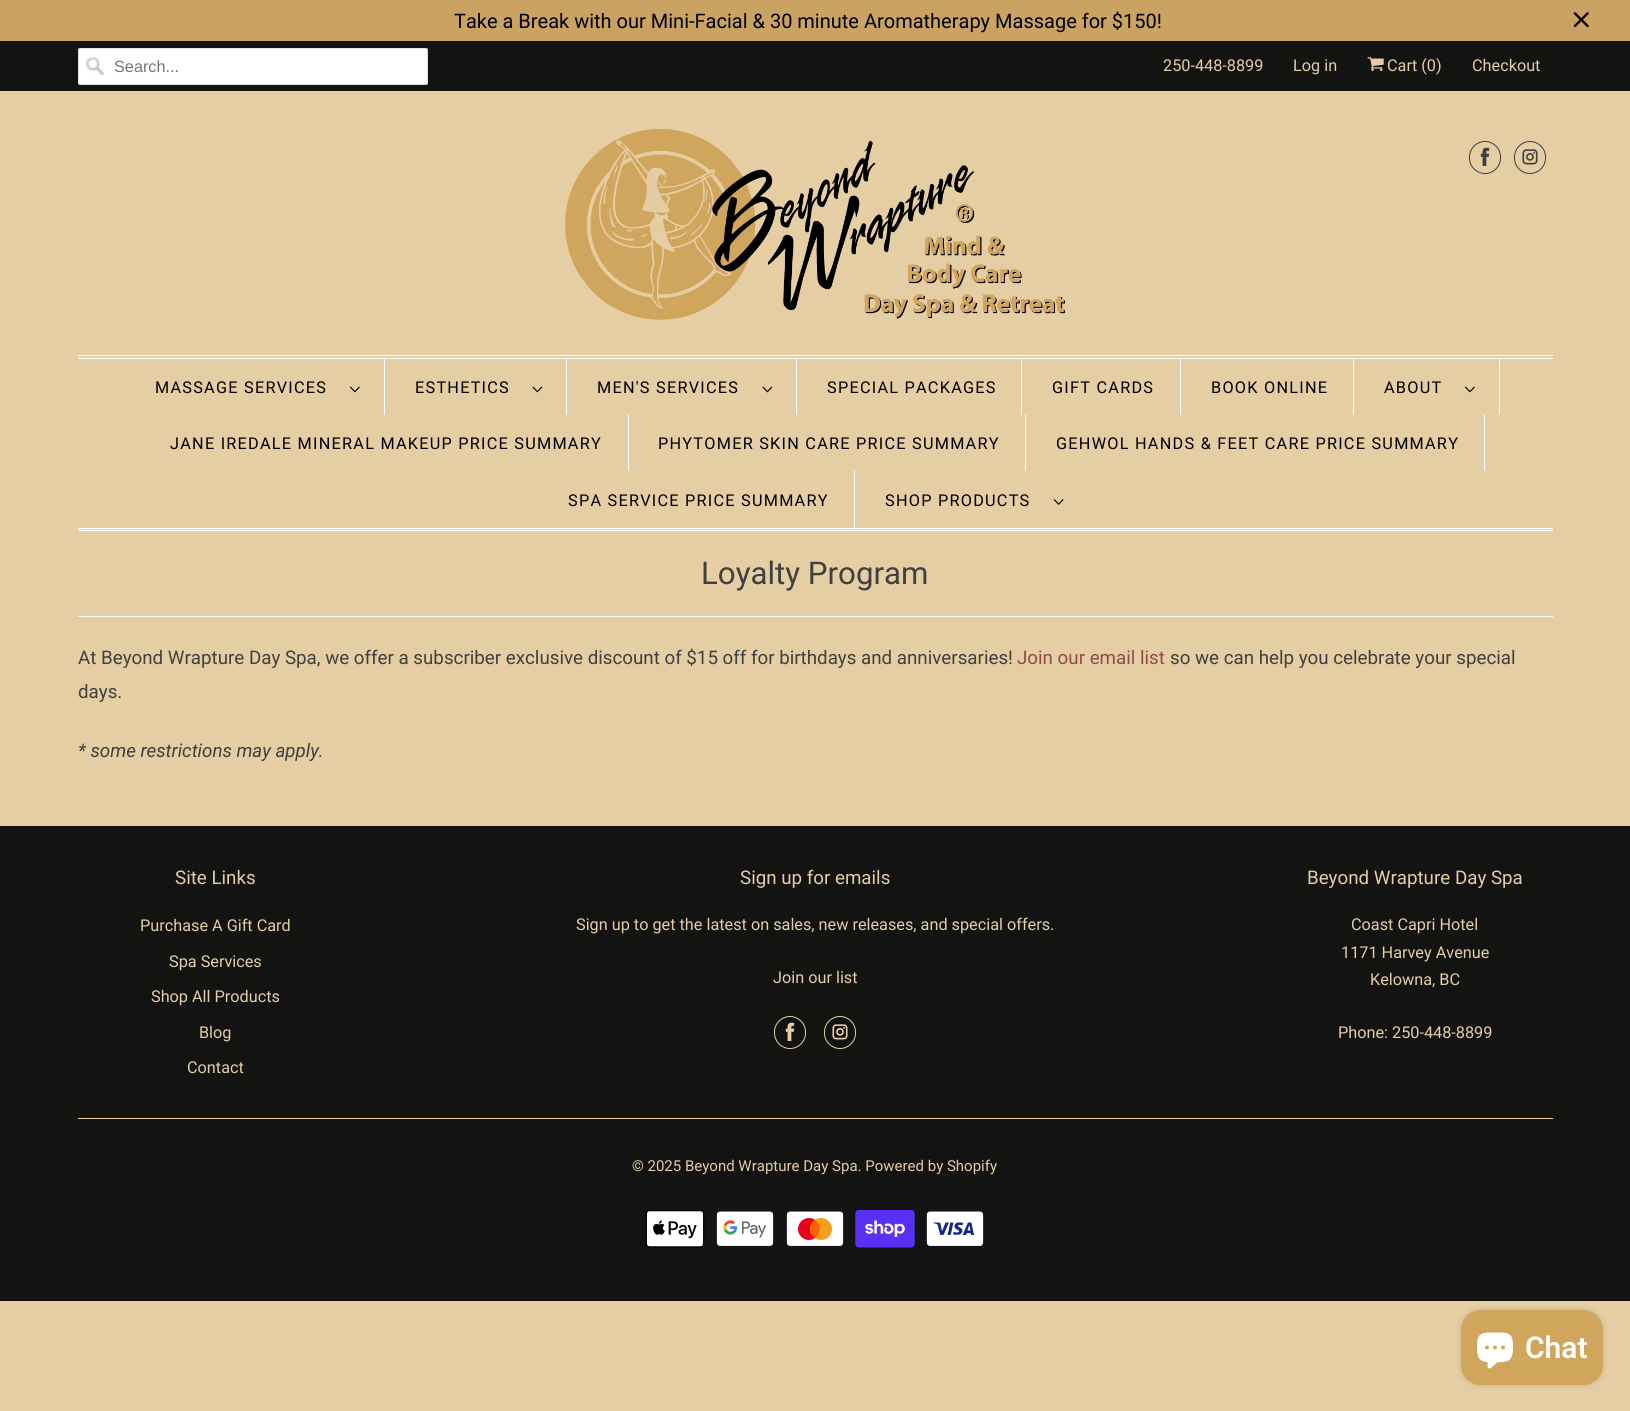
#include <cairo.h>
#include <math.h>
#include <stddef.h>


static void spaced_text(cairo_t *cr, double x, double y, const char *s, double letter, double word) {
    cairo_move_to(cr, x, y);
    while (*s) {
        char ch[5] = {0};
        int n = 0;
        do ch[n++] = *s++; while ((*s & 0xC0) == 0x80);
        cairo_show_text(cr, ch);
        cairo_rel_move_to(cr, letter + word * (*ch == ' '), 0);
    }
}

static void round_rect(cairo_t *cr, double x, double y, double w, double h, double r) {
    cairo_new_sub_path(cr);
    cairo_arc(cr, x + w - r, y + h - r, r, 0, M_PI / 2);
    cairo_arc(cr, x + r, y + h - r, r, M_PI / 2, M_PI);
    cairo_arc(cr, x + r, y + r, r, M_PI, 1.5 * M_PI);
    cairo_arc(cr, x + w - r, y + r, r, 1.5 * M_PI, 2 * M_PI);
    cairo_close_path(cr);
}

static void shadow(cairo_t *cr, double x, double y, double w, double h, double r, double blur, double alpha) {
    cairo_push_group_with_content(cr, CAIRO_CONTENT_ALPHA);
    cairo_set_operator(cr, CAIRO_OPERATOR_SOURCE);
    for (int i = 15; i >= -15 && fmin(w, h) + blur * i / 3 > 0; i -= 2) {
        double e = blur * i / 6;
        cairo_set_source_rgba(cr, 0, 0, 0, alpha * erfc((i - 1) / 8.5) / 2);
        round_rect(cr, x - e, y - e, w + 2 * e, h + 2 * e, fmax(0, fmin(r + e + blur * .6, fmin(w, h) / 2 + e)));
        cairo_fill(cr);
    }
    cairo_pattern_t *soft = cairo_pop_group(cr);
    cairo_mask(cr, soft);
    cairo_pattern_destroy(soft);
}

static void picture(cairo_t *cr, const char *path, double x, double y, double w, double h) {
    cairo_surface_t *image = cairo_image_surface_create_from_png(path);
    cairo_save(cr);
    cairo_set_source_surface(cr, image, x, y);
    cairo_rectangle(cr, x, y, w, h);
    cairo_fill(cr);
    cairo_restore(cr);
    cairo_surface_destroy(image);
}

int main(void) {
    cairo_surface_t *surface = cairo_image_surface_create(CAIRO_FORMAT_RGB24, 1630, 1411);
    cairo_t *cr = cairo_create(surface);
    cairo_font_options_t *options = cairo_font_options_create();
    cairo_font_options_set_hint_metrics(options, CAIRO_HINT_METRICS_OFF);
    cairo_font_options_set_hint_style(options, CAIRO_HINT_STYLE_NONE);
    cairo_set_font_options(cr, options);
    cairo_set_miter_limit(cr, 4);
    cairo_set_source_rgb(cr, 0.898, 0.804, 0.643);
    cairo_paint(cr);
    cairo_set_source_rgb(cr, 0.792, 0.639, 0.388);
    cairo_rectangle(cr, 0, 0, 1630, 41);
    cairo_fill(cr);
    cairo_select_font_face(cr, "Roboto", CAIRO_FONT_SLANT_NORMAL, CAIRO_FONT_WEIGHT_NORMAL);
    cairo_set_font_size(cr, 20);
    cairo_set_source_rgb(cr, 0, 0, 0);
    cairo_move_to(cr, 454, 28);
    cairo_show_text(cr, "Take a Break with our Mini-Facial & 30 minute Aromatherapy Massage for $150!");
    picture(cr, "img1.png", 1573, 12, 16, 16);
    cairo_set_source_rgb(cr, 0.075, 0.075, 0.071);
    cairo_rectangle(cr, 0, 41, 1630, 50);
    cairo_fill(cr);
    cairo_set_source_rgb(cr, 1, 1, 1);
    round_rect(cr, 78, 48, 350, 37, 2.5);
    cairo_fill(cr);
    picture(cr, "img2.png", 86, 57, 18, 18);
    round_rect(cr, 78.5, 48.5, 349, 36, 2);
    cairo_set_source_rgb(cr, 0.875, 0.875, 0.875);
    cairo_set_line_width(cr, 1);
    cairo_stroke(cr);
    cairo_select_font_face(cr, "Liberation Sans", CAIRO_FONT_SLANT_NORMAL, CAIRO_FONT_WEIGHT_NORMAL);
    cairo_set_font_size(cr, 16.25);
    cairo_set_source_rgb(cr, 0.459, 0.459, 0.459);
    cairo_move_to(cr, 114, 72);
    cairo_show_text(cr, "Search...");
    cairo_select_font_face(cr, "Roboto", CAIRO_FONT_SLANT_NORMAL, CAIRO_FONT_WEIGHT_NORMAL);
    cairo_set_source_rgb(cr, 0.898, 0.804, 0.643);
    cairo_move_to(cr, 1163, 71);
    cairo_show_text(cr, "250-448-8899");
    cairo_move_to(cr, 1293, 71);
    cairo_show_text(cr, "Log in");
    picture(cr, "img3.png", 1367, 57, 17, 14);
    cairo_move_to(cr, 1387, 71);
    cairo_show_text(cr, "Cart (0)");
    cairo_move_to(cr, 1472, 71);
    cairo_show_text(cr, "Checkout");
    picture(cr, "img4.png", 565, 129, 500, 191);
    round_rect(cr, 1469.5, 141.5, 31, 32, 15.5);
    cairo_set_source_rgb(cr, 0.251, 0.251, 0.251);
    cairo_stroke(cr);
    picture(cr, "img5.png", 1480, 147, 10, 19);
    round_rect(cr, 1514.5, 141.5, 31, 32, 15.5);
    cairo_stroke(cr);
    picture(cr, "img6.png", 1522, 149, 16, 16);
    cairo_set_source_rgb(cr, 1, 1, 1);
    cairo_rectangle(cr, 78, 355, 1475, 1);
    cairo_fill(cr);
    cairo_rectangle(cr, 78, 358, 1475, 1);
    cairo_fill(cr);
    cairo_rectangle(cr, 78, 528, 1475, 1);
    cairo_fill(cr);
    cairo_rectangle(cr, 78, 530, 1475, 1);
    cairo_fill(cr);
    cairo_rectangle(cr, 384, 359, 1, 56);
    cairo_fill(cr);
    cairo_set_source_rgb(cr, 0, 0, 0);
    spaced_text(cr, 155, 393, "MASSAGE SERVICES", 1.25, 0);
    picture(cr, "img7.png", 350, 386, 10, 7);
    cairo_set_source_rgb(cr, 1, 1, 1);
    cairo_rectangle(cr, 566, 359, 1, 56);
    cairo_fill(cr);
    cairo_set_source_rgb(cr, 0, 0, 0);
    spaced_text(cr, 415, 393, "ESTHETICS", 1.25, 0);
    picture(cr, "img8.png", 532, 386, 11, 7);
    cairo_set_source_rgb(cr, 1, 1, 1);
    cairo_rectangle(cr, 796, 359, 1, 56);
    cairo_fill(cr);
    cairo_set_source_rgb(cr, 0, 0, 0);
    spaced_text(cr, 597, 393, "MEN'S SERVICES", 1.25, 0);
    picture(cr, "img8.png", 762, 386, 11, 7);
    cairo_set_source_rgb(cr, 1, 1, 1);
    cairo_rectangle(cr, 1021, 359, 1, 56);
    cairo_fill(cr);
    cairo_set_source_rgb(cr, 0, 0, 0);
    spaced_text(cr, 827, 393, "SPECIAL PACKAGES", 1.25, 0);
    cairo_set_source_rgb(cr, 1, 1, 1);
    cairo_rectangle(cr, 1180, 359, 1, 56);
    cairo_fill(cr);
    cairo_set_source_rgb(cr, 0, 0, 0);
    spaced_text(cr, 1052, 393, "GIFT CARDS", 1.25, 0);
    cairo_set_source_rgb(cr, 1, 1, 1);
    cairo_rectangle(cr, 1353, 359, 1, 56);
    cairo_fill(cr);
    cairo_set_source_rgb(cr, 0, 0, 0);
    spaced_text(cr, 1211, 393, "BOOK ONLINE", 1.25, 0);
    cairo_set_source_rgb(cr, 1, 1, 1);
    cairo_rectangle(cr, 1499, 359, 1, 56);
    cairo_fill(cr);
    cairo_set_source_rgb(cr, 0, 0, 0);
    spaced_text(cr, 1384, 393, "ABOUT", 1.25, 0);
    picture(cr, "img7.png", 1465, 386, 10, 7);
    cairo_set_source_rgb(cr, 1, 1, 1);
    cairo_rectangle(cr, 628, 415, 1, 56);
    cairo_fill(cr);
    cairo_set_source_rgb(cr, 0, 0, 0);
    spaced_text(cr, 170, 449, "JANE IREDALE MINERAL MAKEUP PRICE SUMMARY", 1.25, 0);
    cairo_set_source_rgb(cr, 1, 1, 1);
    cairo_rectangle(cr, 1025, 415, 1, 56);
    cairo_fill(cr);
    cairo_set_source_rgb(cr, 0, 0, 0);
    spaced_text(cr, 658, 449, "PHYTOMER SKIN CARE PRICE SUMMARY", 1.25, 0);
    cairo_set_source_rgb(cr, 1, 1, 1);
    cairo_rectangle(cr, 1484, 415, 1, 56);
    cairo_fill(cr);
    cairo_set_source_rgb(cr, 0, 0, 0);
    spaced_text(cr, 1056, 449, "GEHWOL HANDS & FEET CARE PRICE SUMMARY", 1.25, 0);
    cairo_set_source_rgb(cr, 1, 1, 1);
    cairo_rectangle(cr, 854, 471, 1, 57);
    cairo_fill(cr);
    cairo_set_source_rgb(cr, 0, 0, 0);
    spaced_text(cr, 568, 506, "SPA SERVICE PRICE SUMMARY", 1.25, 0);
    spaced_text(cr, 885, 506, "SHOP PRODUCTS", 1.25, 0);
    picture(cr, "img9.png", 1053, 499, 11, 6);
    cairo_set_source_rgb(cr, 1, 1, 1);
    cairo_rectangle(cr, 78, 616, 1475, 1);
    cairo_fill(cr);
    cairo_set_font_size(cr, 31.25);
    cairo_set_source_rgb(cr, 0.251, 0.251, 0.251);
    cairo_move_to(cr, 701, 584);
    cairo_show_text(cr, "Loyalty Program");
    cairo_set_font_size(cr, 18.75);
    cairo_move_to(cr, 78, 664);
    cairo_show_text(cr, "At Beyond Wrapture Day Spa, we offer a subscriber exclusive discount of $15 off for birthdays and anniversaries!");
    cairo_set_source_rgb(cr, 0.573, 0.29, 0.302);
    cairo_move_to(cr, 1017, 664);
    cairo_show_text(cr, "Join our email list");
    cairo_set_source_rgb(cr, 0.251, 0.251, 0.251);
    cairo_move_to(cr, 1170, 664);
    cairo_show_text(cr, "so we can help you celebrate your special");
    cairo_move_to(cr, 78, 698);
    cairo_show_text(cr, "days.");
    cairo_select_font_face(cr, "Roboto", CAIRO_FONT_SLANT_ITALIC, CAIRO_FONT_WEIGHT_NORMAL);
    cairo_move_to(cr, 78, 757);
    cairo_show_text(cr, "* some restrictions may apply.");
    cairo_set_source_rgb(cr, 0.075, 0.075, 0.071);
    cairo_rectangle(cr, 0, 826, 1630, 475);
    cairo_fill(cr);
    cairo_select_font_face(cr, "Roboto", CAIRO_FONT_SLANT_NORMAL, CAIRO_FONT_WEIGHT_NORMAL);
    cairo_set_source_rgb(cr, 0.898, 0.804, 0.643);
    cairo_move_to(cr, 175, 884);
    cairo_show_text(cr, "Site Links");
    cairo_set_font_size(cr, 16.25);
    cairo_move_to(cr, 140, 931);
    cairo_show_text(cr, "Purchase A Gift Card");
    cairo_move_to(cr, 169, 967);
    cairo_show_text(cr, "Spa Services");
    cairo_move_to(cr, 151, 1002);
    cairo_show_text(cr, "Shop All Products");
    cairo_move_to(cr, 199, 1038);
    cairo_show_text(cr, "Blog");
    cairo_move_to(cr, 187, 1073);
    cairo_show_text(cr, "Contact");
    cairo_set_font_size(cr, 18.75);
    cairo_move_to(cr, 740, 884);
    cairo_show_text(cr, "Sign up for emails");
    cairo_set_font_size(cr, 16.25);
    cairo_move_to(cr, 576, 930);
    cairo_show_text(cr, "Sign up to get the latest on sales, new releases, and special offers.");
    cairo_move_to(cr, 773, 983);
    cairo_show_text(cr, "Join our list");
    round_rect(cr, 774.5, 1016.5, 31, 32, 15.5);
    cairo_stroke(cr);
    picture(cr, "img10.png", 785, 1022, 10, 19);
    round_rect(cr, 824.5, 1016.5, 31, 32, 15.5);
    cairo_stroke(cr);
    picture(cr, "img11.png", 832, 1024, 16, 16);
    cairo_set_font_size(cr, 18.75);
    cairo_move_to(cr, 1307, 884);
    cairo_show_text(cr, "Beyond Wrapture Day Spa");
    cairo_set_font_size(cr, 16.25);
    cairo_move_to(cr, 1351, 930);
    cairo_show_text(cr, "Coast Capri Hotel");
    cairo_move_to(cr, 1341, 958);
    cairo_show_text(cr, "1171 Harvey Avenue");
    cairo_move_to(cr, 1370, 985);
    cairo_show_text(cr, "Kelowna, BC");
    cairo_move_to(cr, 1338, 1038);
    cairo_show_text(cr, "Phone: 250-448-8899");
    cairo_rectangle(cr, 78, 1118, 1475, 1);
    cairo_fill(cr);
    cairo_set_font_size(cr, 15);
    cairo_move_to(cr, 632, 1171);
    cairo_show_text(cr, "© 2025 Beyond Wrapture Day Spa. Powered by Shopify");
    picture(cr, "img12.png", 645, 1210, 60, 38);
    picture(cr, "img13.png", 716, 1211, 58, 35);
    picture(cr, "img14.png", 786, 1211, 58, 35);
    picture(cr, "img15.png", 855, 1210, 60, 38);
    picture(cr, "img16.png", 926, 1211, 58, 35);
    cairo_set_source_rgb(cr, 0, 0, 0);
    shadow(cr, 1461, 1310, 142, 75, 20, 3, 0.15);
    cairo_set_source_rgb(cr, 0.816, 0.647, 0.361);
    round_rect(cr, 1461, 1310, 142, 75, 20);
    cairo_fill(cr);
    picture(cr, "img17.png", 1477, 1332, 36, 37);
    cairo_select_font_face(cr, "Roboto SemiBold", CAIRO_FONT_SLANT_NORMAL, CAIRO_FONT_WEIGHT_NORMAL);
    cairo_set_font_size(cr, 30);
    cairo_set_source_rgb(cr, 1, 1, 1);
    cairo_move_to(cr, 1525, 1358);
    cairo_show_text(cr, "Chat");
    cairo_surface_write_to_png(surface, "page.png");
    cairo_font_options_destroy(options);
    cairo_destroy(cr);
    cairo_surface_destroy(surface);
    return 0;
}
